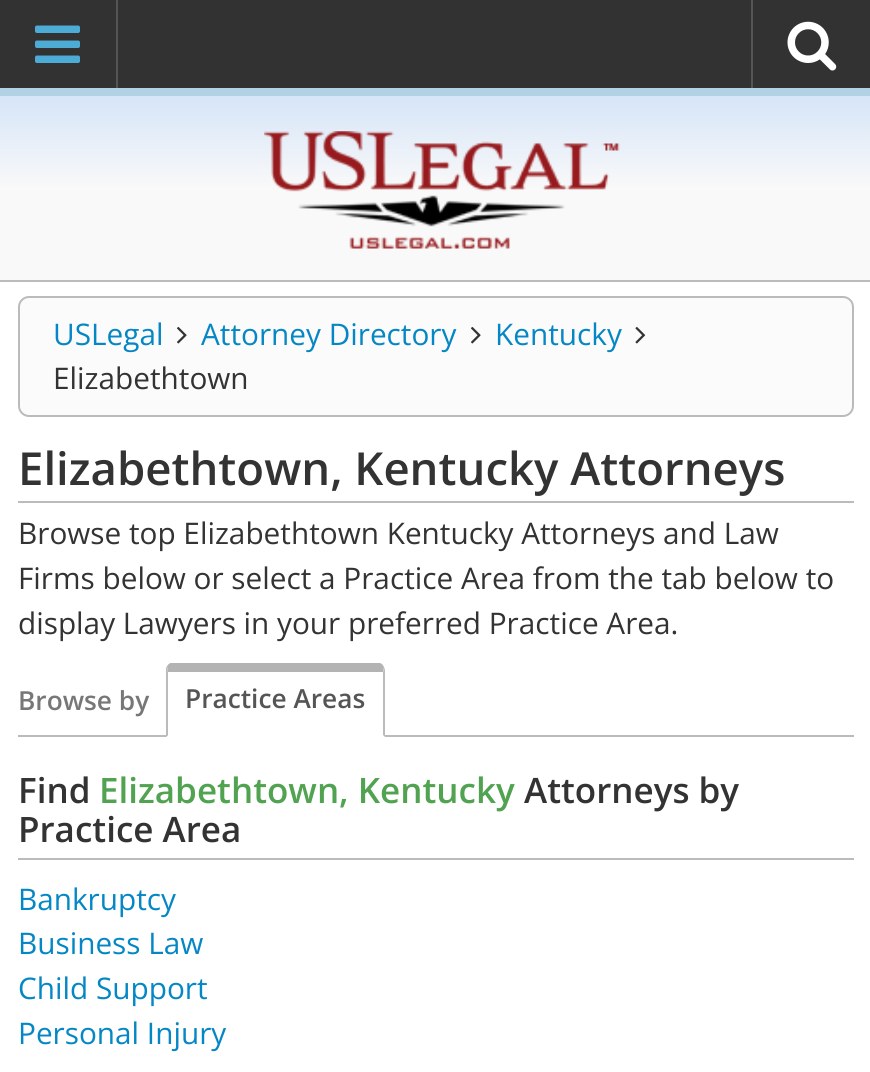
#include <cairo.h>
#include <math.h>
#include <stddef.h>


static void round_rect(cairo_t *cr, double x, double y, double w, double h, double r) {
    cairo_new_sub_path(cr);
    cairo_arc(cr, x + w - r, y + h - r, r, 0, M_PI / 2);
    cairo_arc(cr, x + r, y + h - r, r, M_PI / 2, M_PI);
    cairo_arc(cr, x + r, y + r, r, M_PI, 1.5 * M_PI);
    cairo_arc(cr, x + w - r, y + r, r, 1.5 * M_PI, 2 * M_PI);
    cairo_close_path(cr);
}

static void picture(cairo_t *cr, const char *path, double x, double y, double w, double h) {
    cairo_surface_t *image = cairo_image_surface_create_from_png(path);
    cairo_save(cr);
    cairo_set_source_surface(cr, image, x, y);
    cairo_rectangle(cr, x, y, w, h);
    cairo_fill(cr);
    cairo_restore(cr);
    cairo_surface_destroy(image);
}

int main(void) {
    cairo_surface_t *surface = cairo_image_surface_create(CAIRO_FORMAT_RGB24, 870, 1072);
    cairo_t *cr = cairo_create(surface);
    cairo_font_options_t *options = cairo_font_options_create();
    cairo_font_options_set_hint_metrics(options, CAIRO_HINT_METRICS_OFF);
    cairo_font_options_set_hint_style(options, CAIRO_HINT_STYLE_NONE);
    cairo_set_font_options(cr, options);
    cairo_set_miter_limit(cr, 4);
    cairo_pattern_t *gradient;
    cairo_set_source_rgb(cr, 1, 1, 1);
    cairo_paint(cr);
    cairo_set_source_rgb(cr, 0.196, 0.196, 0.196);
    cairo_rectangle(cr, 0, 0, 870, 88);
    cairo_fill(cr);
    cairo_set_source_rgb(cr, 0.333, 0.333, 0.333);
    cairo_rectangle(cr, 116, 0, 2, 88);
    cairo_fill(cr);
    picture(cr, "img1.png", 35, 25, 45, 38);
    cairo_rectangle(cr, 751, 0, 2, 88);
    cairo_fill(cr);
    picture(cr, "img2.png", 787, 21, 50, 50);
    gradient = cairo_pattern_create_linear(436, 96, 436, 280);
    cairo_pattern_add_color_stop_rgba(gradient, 0, 0.839, 0.898, 0.973, 1);
    cairo_pattern_add_color_stop_rgba(gradient, 0.5, 0.976, 0.976, 0.976, 1);
    cairo_pattern_add_color_stop_rgba(gradient, 1, 0.976, 0.976, 0.976, 1);
    cairo_set_source(cr, gradient);
    cairo_pattern_destroy(gradient);
    cairo_rectangle(cr, 0, 96, 870, 184);
    cairo_fill(cr);
    cairo_set_source_rgb(cr, 0.694, 0.824, 0.898);
    cairo_rectangle(cr, 0, 88, 870, 8);
    cairo_fill(cr);
    picture(cr, "img3.png", 264, 131, 356, 118);
    cairo_set_source_rgb(cr, 0.733, 0.733, 0.733);
    cairo_rectangle(cr, 0, 280, 870, 2);
    cairo_fill(cr);
    cairo_set_source_rgb(cr, 0.984, 0.984, 0.984);
    round_rect(cr, 19, 297, 834, 119, 10);
    cairo_fill_preserve(cr);
    cairo_set_source_rgb(cr, 0.733, 0.733, 0.733);
    cairo_stroke(cr);
    cairo_select_font_face(cr, "Open Sans", CAIRO_FONT_SLANT_NORMAL, CAIRO_FONT_WEIGHT_NORMAL);
    cairo_set_font_size(cr, 29.75);
    cairo_set_source_rgb(cr, 0.016, 0.529, 0.769);
    cairo_move_to(cr, 53, 345);
    cairo_show_text(cr, "USLegal");
    picture(cr, "img4.png", 177, 327, 10, 17);
    cairo_move_to(cr, 201, 345);
    cairo_show_text(cr, "Attorney Directory");
    picture(cr, "img4.png", 471, 327, 10, 17);
    cairo_move_to(cr, 495, 345);
    cairo_show_text(cr, "Kentucky");
    picture(cr, "img5.png", 635, 327, 11, 17);
    cairo_set_source_rgb(cr, 0.2, 0.2, 0.2);
    cairo_move_to(cr, 53, 389);
    cairo_show_text(cr, "Elizabethtown");
    cairo_set_source_rgb(cr, 0.733, 0.733, 0.733);
    cairo_rectangle(cr, 18, 501, 836, 2);
    cairo_fill(cr);
    cairo_select_font_face(cr, "Open Sans SemiBold", CAIRO_FONT_SLANT_NORMAL, CAIRO_FONT_WEIGHT_NORMAL);
    cairo_set_font_size(cr, 45.5);
    cairo_set_source_rgb(cr, 0.2, 0.2, 0.2);
    cairo_move_to(cr, 18, 485);
    cairo_show_text(cr, "Elizabethtown, Kentucky Attorneys");
    cairo_select_font_face(cr, "Open Sans", CAIRO_FONT_SLANT_NORMAL, CAIRO_FONT_WEIGHT_NORMAL);
    cairo_set_font_size(cr, 29.75);
    cairo_move_to(cr, 18, 544);
    cairo_show_text(cr, "Browse top Elizabethtown Kentucky Attorneys and Law");
    cairo_move_to(cr, 18, 589);
    cairo_show_text(cr, "Firms below or select a Practice Area from the tab below to");
    cairo_move_to(cr, 18, 634);
    cairo_show_text(cr, "display Lawyers in your preferred Practice Area.");
    cairo_set_source_rgb(cr, 0.733, 0.733, 0.733);
    cairo_rectangle(cr, 18, 735, 836, 2);
    cairo_fill(cr);
    cairo_select_font_face(cr, "Open Sans SemiBold", CAIRO_FONT_SLANT_NORMAL, CAIRO_FONT_WEIGHT_NORMAL);
    cairo_set_font_size(cr, 26.25);
    cairo_set_source_rgb(cr, 0.467, 0.467, 0.467);
    cairo_move_to(cr, 18, 710);
    cairo_show_text(cr, "Browse by");
    cairo_set_source_rgb(cr, 0.702, 0.702, 0.702);
    cairo_new_path(cr);
    cairo_move_to(cr, 167, 666);
    cairo_curve_to(cr, 168, 665, 169, 663, 171, 663);
    cairo_line_to(cr, 380, 663);
    cairo_line_to(cr, 382, 664);
    cairo_line_to(cr, 384, 667);
    cairo_line_to(cr, 383, 673);
    cairo_line_to(cr, 383, 672);
    cairo_line_to(cr, 168, 672);
    cairo_close_path(cr);
    cairo_fill(cr);
    cairo_set_source_rgb(cr, 0.733, 0.733, 0.733);
    cairo_new_path(cr);
    cairo_move_to(cr, 385, 737);
    cairo_line_to(cr, 385, 670);
    cairo_line_to(cr, 384, 667);
    cairo_line_to(cr, 383, 673);
    cairo_line_to(cr, 383, 735);
    cairo_close_path(cr);
    cairo_fill(cr);
    cairo_set_source_rgb(cr, 1, 1, 1);
    cairo_new_path(cr);
    cairo_move_to(cr, 385, 737);
    cairo_line_to(cr, 383, 735);
    cairo_line_to(cr, 168, 735);
    cairo_line_to(cr, 166, 737);
    cairo_close_path(cr);
    cairo_fill(cr);
    cairo_set_source_rgb(cr, 0.733, 0.733, 0.733);
    cairo_new_path(cr);
    cairo_move_to(cr, 166, 737);
    cairo_line_to(cr, 166, 668);
    cairo_line_to(cr, 167, 666);
    cairo_line_to(cr, 168, 672);
    cairo_line_to(cr, 168, 735);
    cairo_close_path(cr);
    cairo_fill(cr);
    cairo_set_source_rgb(cr, 0.333, 0.333, 0.333);
    cairo_move_to(cr, 185, 708);
    cairo_show_text(cr, "Practice Areas");
    cairo_set_source_rgb(cr, 0.733, 0.733, 0.733);
    cairo_rectangle(cr, 18, 858, 836, 2);
    cairo_fill(cr);
    cairo_set_font_size(cr, 35);
    cairo_set_source_rgb(cr, 0.2, 0.2, 0.2);
    cairo_move_to(cr, 18, 803);
    cairo_show_text(cr, "Find");
    cairo_set_source_rgb(cr, 0.318, 0.639, 0.318);
    cairo_move_to(cr, 99, 803);
    cairo_show_text(cr, "Elizabethtown, Kentucky");
    cairo_set_source_rgb(cr, 0.2, 0.2, 0.2);
    cairo_move_to(cr, 524, 803);
    cairo_show_text(cr, "Attorneys by");
    cairo_move_to(cr, 18, 842);
    cairo_show_text(cr, "Practice Area");
    cairo_select_font_face(cr, "Open Sans", CAIRO_FONT_SLANT_NORMAL, CAIRO_FONT_WEIGHT_NORMAL);
    cairo_set_font_size(cr, 29.75);
    cairo_set_source_rgb(cr, 0.016, 0.529, 0.769);
    cairo_move_to(cr, 18, 910);
    cairo_show_text(cr, "Bankruptcy");
    cairo_move_to(cr, 18, 954);
    cairo_show_text(cr, "Business Law");
    cairo_move_to(cr, 18, 999);
    cairo_show_text(cr, "Child Support");
    cairo_move_to(cr, 18, 1044);
    cairo_show_text(cr, "Personal Injury");
    cairo_surface_write_to_png(surface, "page.png");
    cairo_font_options_destroy(options);
    cairo_destroy(cr);
    cairo_surface_destroy(surface);
    return 0;
}
